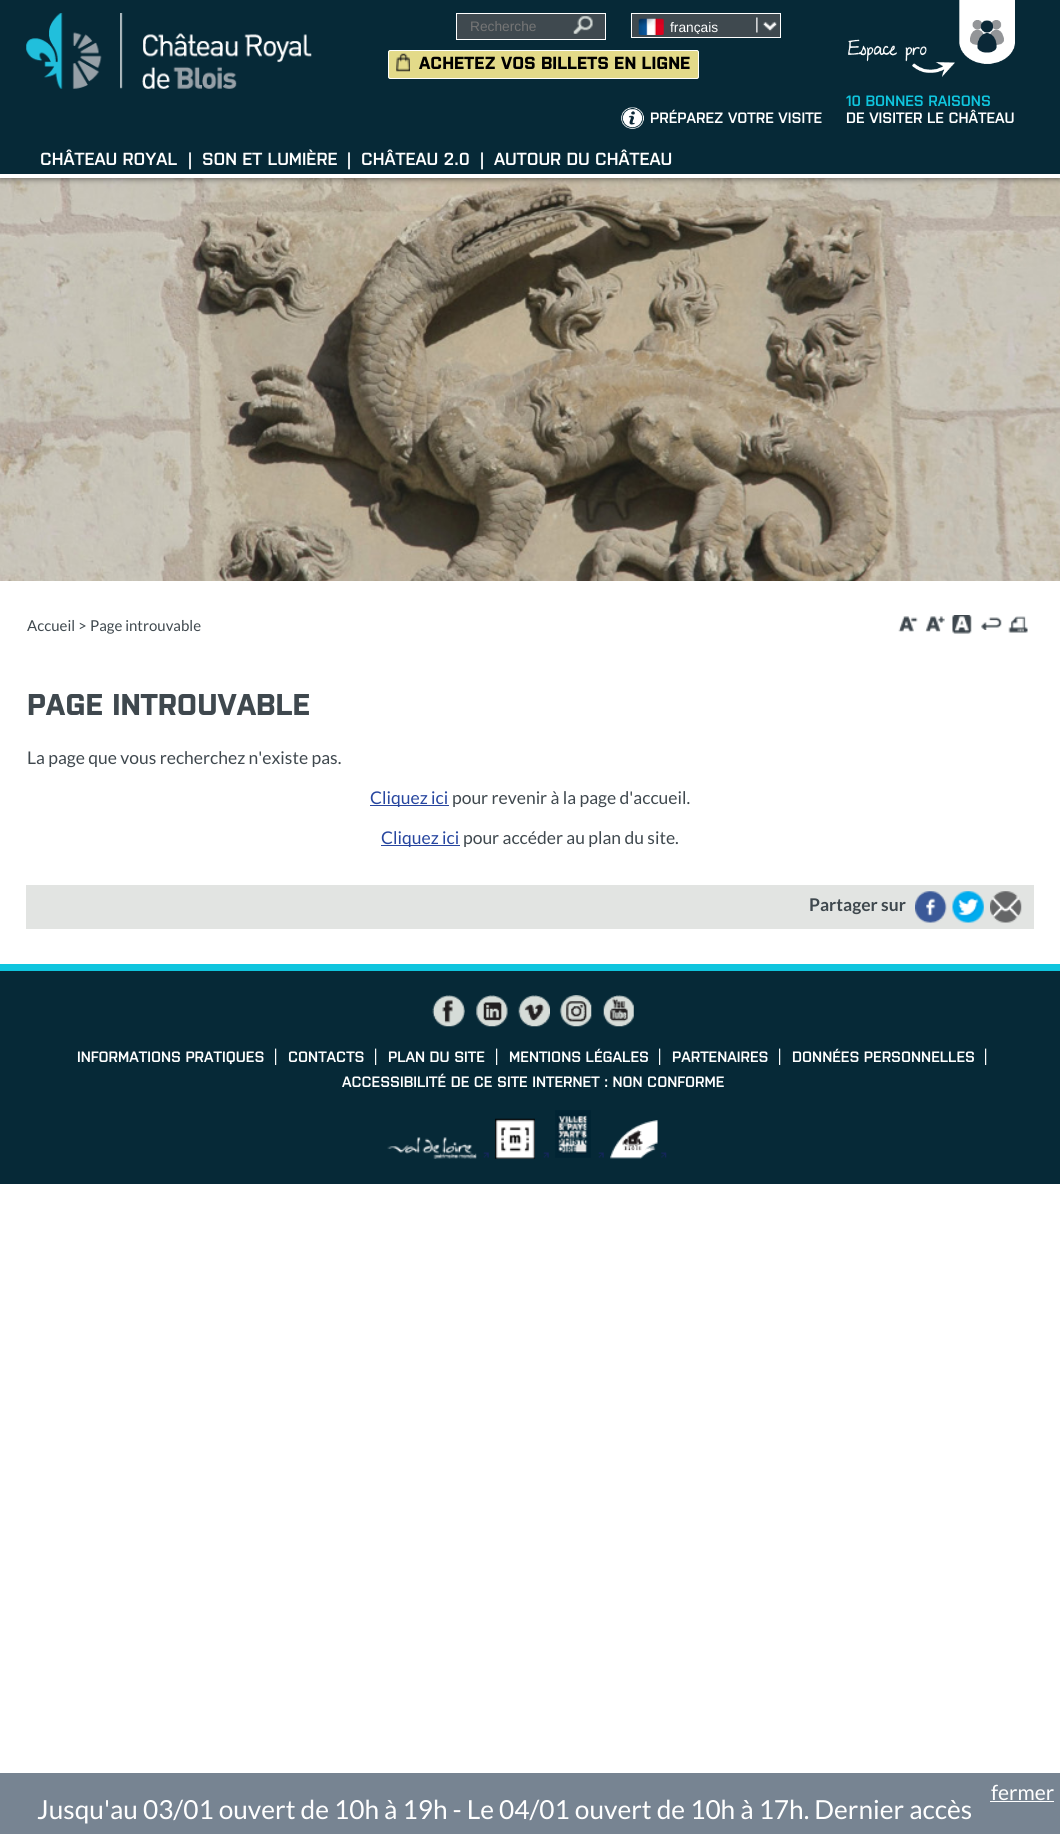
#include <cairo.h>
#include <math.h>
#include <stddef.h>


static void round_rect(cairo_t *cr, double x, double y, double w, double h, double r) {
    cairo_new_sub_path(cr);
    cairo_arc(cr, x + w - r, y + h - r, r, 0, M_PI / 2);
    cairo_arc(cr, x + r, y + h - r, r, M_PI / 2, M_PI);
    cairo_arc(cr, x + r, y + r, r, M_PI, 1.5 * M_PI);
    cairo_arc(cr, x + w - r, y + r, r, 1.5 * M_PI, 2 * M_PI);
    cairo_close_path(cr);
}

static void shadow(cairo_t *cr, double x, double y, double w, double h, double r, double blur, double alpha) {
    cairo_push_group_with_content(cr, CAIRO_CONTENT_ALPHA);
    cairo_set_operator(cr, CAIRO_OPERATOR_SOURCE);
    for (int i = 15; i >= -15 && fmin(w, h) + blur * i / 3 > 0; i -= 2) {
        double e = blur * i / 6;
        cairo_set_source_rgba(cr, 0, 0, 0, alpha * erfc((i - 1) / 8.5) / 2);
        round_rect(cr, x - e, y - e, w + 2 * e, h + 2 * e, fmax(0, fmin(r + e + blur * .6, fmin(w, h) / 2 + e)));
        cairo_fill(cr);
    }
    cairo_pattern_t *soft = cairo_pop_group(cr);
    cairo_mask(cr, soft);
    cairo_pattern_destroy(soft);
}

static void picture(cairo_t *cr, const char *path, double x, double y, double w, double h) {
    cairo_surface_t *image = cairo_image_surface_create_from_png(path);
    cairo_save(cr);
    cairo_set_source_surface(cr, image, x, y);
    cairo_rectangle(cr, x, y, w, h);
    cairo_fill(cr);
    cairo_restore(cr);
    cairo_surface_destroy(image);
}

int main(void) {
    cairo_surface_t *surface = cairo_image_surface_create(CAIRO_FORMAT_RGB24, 1060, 1834);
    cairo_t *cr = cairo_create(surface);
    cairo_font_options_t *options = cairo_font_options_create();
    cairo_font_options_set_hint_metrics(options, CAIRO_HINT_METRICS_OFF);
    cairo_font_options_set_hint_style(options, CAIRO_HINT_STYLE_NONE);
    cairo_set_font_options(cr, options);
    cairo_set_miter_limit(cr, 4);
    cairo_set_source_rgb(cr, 1, 1, 1);
    cairo_paint(cr);
    picture(cr, "img8.png", 0, 178, 1060, 403);
    cairo_set_source_rgb(cr, 0, 0, 0);
    shadow(cr, 0, 1, 1060, 178, 0, 3, 0.5);
    cairo_set_source_rgb(cr, 0.027, 0.161, 0.216);
    cairo_rectangle(cr, 0, 0, 1060, 174);
    cairo_fill(cr);
    cairo_set_source_rgb(cr, 1, 1, 1);
    cairo_rectangle(cr, 0, 174, 1060, 4);
    cairo_fill(cr);
    picture(cr, "img1.png", 26, 13, 286, 76);
    cairo_set_source_rgb(cr, 0.247, 0.286, 0.31);
    cairo_rectangle(cr, 456.5, 13.5, 149, 26);
    cairo_fill_preserve(cr);
    cairo_set_source_rgb(cr, 1, 1, 1);
    cairo_set_line_width(cr, 1);
    cairo_stroke(cr);
    cairo_select_font_face(cr, "Liberation Sans", CAIRO_FONT_SLANT_NORMAL, CAIRO_FONT_WEIGHT_NORMAL);
    cairo_set_font_size(cr, 13.75);
    cairo_set_source_rgb(cr, 0.459, 0.459, 0.459);
    cairo_move_to(cr, 470, 31);
    cairo_show_text(cr, "Recherche");
    picture(cr, "img2.png", 573, 16, 20, 18);
    cairo_set_source_rgb(cr, 0.89, 0.855, 0.537);
    round_rect(cr, 388, 50, 311, 29, 2.5);
    cairo_fill(cr);
    picture(cr, "img3.png", 396, 53, 14, 19);
    round_rect(cr, 388.5, 50.5, 310, 28, 2);
    cairo_set_source_rgb(cr, 1, 1, 1);
    cairo_stroke(cr);
    cairo_select_font_face(cr, "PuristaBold", CAIRO_FONT_SLANT_NORMAL, CAIRO_FONT_WEIGHT_BOLD);
    cairo_set_font_size(cr, 17.5);
    cairo_set_source_rgb(cr, 0, 0, 0);
    cairo_move_to(cr, 419, 69);
    cairo_show_text(cr, "ACHETEZ VOS BILLETS EN LIGNE");
    cairo_set_source_rgb(cr, 0.247, 0.286, 0.31);
    cairo_rectangle(cr, 632, 14, 148, 23);
    cairo_fill(cr);
    picture(cr, "img4.png", 756, 17, 21, 16);
    cairo_rectangle(cr, 631.5, 13.5, 149, 24);
    cairo_set_source_rgb(cr, 1, 1, 1);
    cairo_stroke(cr);
    picture(cr, "img5.png", 638, 18, 26, 17);
    cairo_save(cr);
    cairo_rectangle(cr, 670, 19, 110, 15);
    cairo_clip(cr);
    cairo_select_font_face(cr, "Liberation Sans", CAIRO_FONT_SLANT_NORMAL, CAIRO_FONT_WEIGHT_NORMAL);
    cairo_set_font_size(cr, 13.75);
    cairo_move_to(cr, 670, 32);
    cairo_show_text(cr, "français");
    cairo_restore(cr);
    picture(cr, "img6.png", 848, 0, 167, 77);
    picture(cr, "img7.png", 621, 107, 23, 22);
    cairo_select_font_face(cr, "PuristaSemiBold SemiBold", CAIRO_FONT_SLANT_NORMAL, CAIRO_FONT_WEIGHT_NORMAL);
    cairo_set_font_size(cr, 15);
    cairo_move_to(cr, 650, 123);
    cairo_show_text(cr, "PRÉPAREZ VOTRE VISITE");
    cairo_set_source_rgb(cr, 0.059, 0.773, 0.871);
    cairo_move_to(cr, 846, 106);
    cairo_show_text(cr, "10 BONNES RAISONS");
    cairo_set_source_rgb(cr, 1, 1, 1);
    cairo_move_to(cr, 846, 123);
    cairo_show_text(cr, "DE VISITER LE CHÂTEAU");
    cairo_set_font_size(cr, 17.5);
    cairo_move_to(cr, 40, 165);
    cairo_show_text(cr, "CHÂTEAU ROYAL");
    cairo_move_to(cr, 188, 167);
    cairo_show_text(cr, "|");
    cairo_move_to(cr, 202, 165);
    cairo_show_text(cr, "SON ET LUMIÈRE");
    cairo_move_to(cr, 347, 167);
    cairo_show_text(cr, "|");
    cairo_move_to(cr, 361, 165);
    cairo_show_text(cr, "CHÂTEAU 2.0");
    cairo_move_to(cr, 480, 167);
    cairo_show_text(cr, "|");
    cairo_move_to(cr, 494, 165);
    cairo_show_text(cr, "AUTOUR DU CHÂTEAU");
    cairo_select_font_face(cr, "Lato", CAIRO_FONT_SLANT_NORMAL, CAIRO_FONT_WEIGHT_NORMAL);
    cairo_set_font_size(cr, 15);
    cairo_set_source_rgb(cr, 0.247, 0.282, 0.306);
    cairo_move_to(cr, 27, 631);
    cairo_show_text(cr, "Accueil >");
    cairo_move_to(cr, 90, 631);
    cairo_show_text(cr, "Page introuvable");
    picture(cr, "img9.png", 898, 616, 20, 16);
    picture(cr, "img10.png", 925, 616, 20, 16);
    picture(cr, "img11.png", 952, 615, 20, 19);
    picture(cr, "img12.png", 981, 617, 21, 13);
    picture(cr, "img13.png", 1008, 616, 20, 17);
    cairo_select_font_face(cr, "PuristaBold", CAIRO_FONT_SLANT_NORMAL, CAIRO_FONT_WEIGHT_BOLD);
    cairo_set_font_size(cr, 30);
    cairo_move_to(cr, 27, 715);
    cairo_show_text(cr, "PAGE INTROUVABLE");
    cairo_select_font_face(cr, "Lato", CAIRO_FONT_SLANT_NORMAL, CAIRO_FONT_WEIGHT_NORMAL);
    cairo_set_font_size(cr, 17.5);
    cairo_move_to(cr, 27, 764);
    cairo_show_text(cr, "La page que vous recherchez n'existe pas.");
    cairo_set_source_rgb(cr, 0.153, 0.275, 0.624);
    cairo_rectangle(cr, 370, 805, 79, 1);
    cairo_fill(cr);
    cairo_move_to(cr, 370, 804);
    cairo_show_text(cr, "Cliquez ici");
    cairo_set_source_rgb(cr, 0.247, 0.282, 0.306);
    cairo_move_to(cr, 452, 804);
    cairo_show_text(cr, "pour revenir à la page d'accueil.");
    cairo_set_source_rgb(cr, 0.153, 0.275, 0.624);
    cairo_rectangle(cr, 381, 845, 79, 1);
    cairo_fill(cr);
    cairo_move_to(cr, 381, 844);
    cairo_show_text(cr, "Cliquez ici");
    cairo_set_source_rgb(cr, 0.247, 0.282, 0.306);
    cairo_move_to(cr, 463, 844);
    cairo_show_text(cr, "pour accéder au plan du site.");
    cairo_set_source_rgb(cr, 0.886, 0.894, 0.886);
    cairo_rectangle(cr, 26, 885, 1008, 44);
    cairo_fill(cr);
    cairo_select_font_face(cr, "Lato", CAIRO_FONT_SLANT_NORMAL, CAIRO_FONT_WEIGHT_BOLD);
    cairo_set_source_rgb(cr, 0.247, 0.282, 0.306);
    cairo_move_to(cr, 809, 911);
    cairo_show_text(cr, "Partager sur");
    picture(cr, "img14.png", 915, 891, 32, 32);
    picture(cr, "img15.png", 952, 891, 32, 32);
    picture(cr, "img16.png", 990, 891, 32, 32);
    cairo_set_source_rgb(cr, 0.027, 0.161, 0.216);
    cairo_rectangle(cr, 0, 971, 1060, 213);
    cairo_fill(cr);
    cairo_set_source_rgb(cr, 0.059, 0.773, 0.871);
    cairo_rectangle(cr, 0, 964, 1060, 7);
    cairo_fill(cr);
    picture(cr, "img17.png", 432, 995, 33, 32);
    picture(cr, "img18.png", 476, 995, 32, 32);
    picture(cr, "img19.png", 518, 995, 32, 32);
    picture(cr, "img20.png", 559, 995, 33, 32);
    picture(cr, "img21.png", 603, 995, 31, 32);
    cairo_select_font_face(cr, "PuristaSemiBold SemiBold", CAIRO_FONT_SLANT_NORMAL, CAIRO_FONT_WEIGHT_NORMAL);
    cairo_set_font_size(cr, 15);
    cairo_set_source_rgb(cr, 1, 1, 1);
    cairo_move_to(cr, 77, 1062);
    cairo_show_text(cr, "INFORMATIONS PRATIQUES");
    cairo_select_font_face(cr, "Lato", CAIRO_FONT_SLANT_NORMAL, CAIRO_FONT_WEIGHT_NORMAL);
    cairo_set_font_size(cr, 17.5);
    cairo_move_to(cr, 273, 1062);
    cairo_show_text(cr, "|");
    cairo_select_font_face(cr, "PuristaSemiBold SemiBold", CAIRO_FONT_SLANT_NORMAL, CAIRO_FONT_WEIGHT_NORMAL);
    cairo_set_font_size(cr, 15);
    cairo_move_to(cr, 288, 1062);
    cairo_show_text(cr, "CONTACTS");
    cairo_select_font_face(cr, "Lato", CAIRO_FONT_SLANT_NORMAL, CAIRO_FONT_WEIGHT_NORMAL);
    cairo_set_font_size(cr, 17.5);
    cairo_move_to(cr, 373, 1062);
    cairo_show_text(cr, "|");
    cairo_select_font_face(cr, "PuristaSemiBold SemiBold", CAIRO_FONT_SLANT_NORMAL, CAIRO_FONT_WEIGHT_NORMAL);
    cairo_set_font_size(cr, 15);
    cairo_move_to(cr, 388, 1062);
    cairo_show_text(cr, "PLAN DU SITE");
    cairo_select_font_face(cr, "Lato", CAIRO_FONT_SLANT_NORMAL, CAIRO_FONT_WEIGHT_NORMAL);
    cairo_set_font_size(cr, 17.5);
    cairo_move_to(cr, 494, 1062);
    cairo_show_text(cr, "|");
    cairo_select_font_face(cr, "PuristaSemiBold SemiBold", CAIRO_FONT_SLANT_NORMAL, CAIRO_FONT_WEIGHT_NORMAL);
    cairo_set_font_size(cr, 15);
    cairo_move_to(cr, 509, 1062);
    cairo_show_text(cr, "MENTIONS LÉGALES");
    cairo_select_font_face(cr, "Lato", CAIRO_FONT_SLANT_NORMAL, CAIRO_FONT_WEIGHT_NORMAL);
    cairo_set_font_size(cr, 17.5);
    cairo_move_to(cr, 657, 1062);
    cairo_show_text(cr, "|");
    cairo_select_font_face(cr, "PuristaSemiBold SemiBold", CAIRO_FONT_SLANT_NORMAL, CAIRO_FONT_WEIGHT_NORMAL);
    cairo_set_font_size(cr, 15);
    cairo_move_to(cr, 672, 1062);
    cairo_show_text(cr, "PARTENAIRES");
    cairo_select_font_face(cr, "Lato", CAIRO_FONT_SLANT_NORMAL, CAIRO_FONT_WEIGHT_NORMAL);
    cairo_set_font_size(cr, 17.5);
    cairo_move_to(cr, 777, 1062);
    cairo_show_text(cr, "|");
    cairo_select_font_face(cr, "PuristaSemiBold SemiBold", CAIRO_FONT_SLANT_NORMAL, CAIRO_FONT_WEIGHT_NORMAL);
    cairo_set_font_size(cr, 15);
    cairo_move_to(cr, 792, 1062);
    cairo_show_text(cr, "DONNÉES PERSONNELLES");
    cairo_select_font_face(cr, "Lato", CAIRO_FONT_SLANT_NORMAL, CAIRO_FONT_WEIGHT_NORMAL);
    cairo_set_font_size(cr, 17.5);
    cairo_move_to(cr, 983, 1062);
    cairo_show_text(cr, "|");
    cairo_select_font_face(cr, "PuristaSemiBold SemiBold", CAIRO_FONT_SLANT_NORMAL, CAIRO_FONT_WEIGHT_NORMAL);
    cairo_set_font_size(cr, 15);
    cairo_move_to(cr, 342, 1087);
    cairo_show_text(cr, "ACCESSIBILITÉ DE CE SITE INTERNET : NON CONFORME");
    picture(cr, "img22.png", 387, 1137, 90, 22);
    picture(cr, "img23.png", 483, 1152, 6, 6);
    picture(cr, "img24.png", 495, 1118, 40, 41);
    picture(cr, "img23.png", 543, 1152, 6, 6);
    picture(cr, "img25.png", 555, 1110, 36, 48);
    picture(cr, "img23.png", 598, 1152, 6, 6);
    picture(cr, "img26.png", 610, 1120, 48, 39);
    picture(cr, "img27.png", 661, 1152, 6, 6);
    cairo_set_source_rgb(cr, 0.467, 0.518, 0.573);
    cairo_rectangle(cr, 0, 1773, 1060, 61);
    cairo_fill(cr);
    cairo_select_font_face(cr, "Lato", CAIRO_FONT_SLANT_NORMAL, CAIRO_FONT_WEIGHT_NORMAL);
    cairo_set_font_size(cr, 21);
    cairo_set_source_rgb(cr, 1, 1, 1);
    cairo_move_to(cr, 991, 1800);
    cairo_show_text(cr, "fermer");
    cairo_rectangle(cr, 990, 1801, 64, 1);
    cairo_fill(cr);
    cairo_set_font_size(cr, 26.25);
    cairo_move_to(cr, 37, 1819);
    cairo_show_text(cr, "Jusqu'au 03/01 ouvert de 10h à 19h - Le 04/01 ouvert de 10h à 17h. Dernier accès");
    cairo_surface_write_to_png(surface, "page.png");
    cairo_font_options_destroy(options);
    cairo_destroy(cr);
    cairo_surface_destroy(surface);
    return 0;
}
